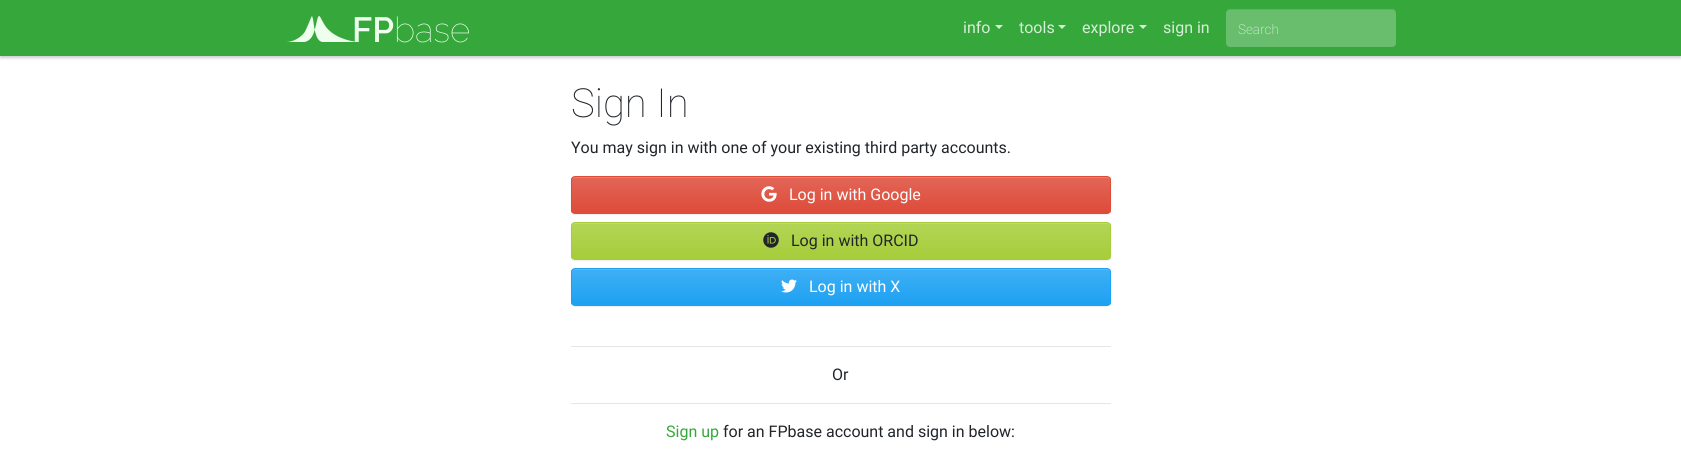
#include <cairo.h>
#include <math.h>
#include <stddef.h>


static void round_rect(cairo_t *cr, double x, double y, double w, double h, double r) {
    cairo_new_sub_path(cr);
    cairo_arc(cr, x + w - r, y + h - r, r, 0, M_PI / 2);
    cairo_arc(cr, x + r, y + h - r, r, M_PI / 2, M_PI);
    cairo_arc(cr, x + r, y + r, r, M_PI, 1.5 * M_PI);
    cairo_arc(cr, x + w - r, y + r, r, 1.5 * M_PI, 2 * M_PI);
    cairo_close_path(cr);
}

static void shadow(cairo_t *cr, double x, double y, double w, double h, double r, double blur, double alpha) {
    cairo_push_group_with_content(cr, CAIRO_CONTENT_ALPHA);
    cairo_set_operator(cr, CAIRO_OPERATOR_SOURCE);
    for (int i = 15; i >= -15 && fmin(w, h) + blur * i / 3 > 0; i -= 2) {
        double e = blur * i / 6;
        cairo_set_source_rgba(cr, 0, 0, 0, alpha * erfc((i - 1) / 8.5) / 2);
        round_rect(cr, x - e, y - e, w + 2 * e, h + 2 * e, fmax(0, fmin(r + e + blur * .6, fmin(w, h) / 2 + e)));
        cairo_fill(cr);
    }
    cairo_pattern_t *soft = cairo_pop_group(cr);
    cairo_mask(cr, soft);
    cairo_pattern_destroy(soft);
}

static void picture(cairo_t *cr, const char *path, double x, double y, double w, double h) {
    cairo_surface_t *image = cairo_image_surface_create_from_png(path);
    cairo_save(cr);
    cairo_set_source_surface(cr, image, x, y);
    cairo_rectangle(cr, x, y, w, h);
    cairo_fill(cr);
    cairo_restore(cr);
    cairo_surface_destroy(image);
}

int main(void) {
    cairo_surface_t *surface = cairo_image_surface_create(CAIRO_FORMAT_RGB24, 1681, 453);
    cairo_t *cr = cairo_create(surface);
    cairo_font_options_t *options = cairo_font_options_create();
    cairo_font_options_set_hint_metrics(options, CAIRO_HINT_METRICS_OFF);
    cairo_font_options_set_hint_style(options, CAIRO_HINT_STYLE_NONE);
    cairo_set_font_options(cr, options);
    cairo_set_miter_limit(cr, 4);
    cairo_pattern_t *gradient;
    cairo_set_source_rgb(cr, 1, 1, 1);
    cairo_paint(cr);
    cairo_set_source_rgb(cr, 0, 0, 0);
    shadow(cr, 0, 2, 1681, 56, 0, 1.5, 0.2);
    cairo_set_source_rgb(cr, 0.212, 0.659, 0.231);
    cairo_rectangle(cr, 0, 0, 1681, 56);
    cairo_fill(cr);
    cairo_set_source_rgb(cr, 0.933, 1, 0.933);
    cairo_set_fill_rule(cr, CAIRO_FILL_RULE_EVEN_ODD);
    cairo_new_path(cr);
    cairo_move_to(cr, 358, 42);
    cairo_curve_to(cr, 358, 42, 342, 41, 331, 32);
    cairo_curve_to(cr, 323, 26, 321, 16, 319, 16);
    cairo_curve_to(cr, 317, 17, 317, 23, 314, 32);
    cairo_curve_to(cr, 311, 42, 304, 42, 304, 42);
    cairo_close_path(cr);
    cairo_move_to(cr, 323, 42);
    cairo_curve_to(cr, 315, 42, 314, 25, 313, 19);
    cairo_line_to(cr, 312, 16);
    cairo_curve_to(cr, 311, 17, 306, 31, 304, 33);
    cairo_curve_to(cr, 300, 38, 293, 42, 286, 42);
    cairo_close_path(cr);
    cairo_fill(cr);
    cairo_select_font_face(cr, "Raleway SemiBold", CAIRO_FONT_SLANT_NORMAL, CAIRO_FONT_WEIGHT_NORMAL);
    cairo_set_font_size(cr, 35);
    cairo_move_to(cr, 352, 42);
    cairo_show_text(cr, "FP");
    cairo_select_font_face(cr, "Raleway Thin", CAIRO_FONT_SLANT_NORMAL, CAIRO_FONT_WEIGHT_NORMAL);
    cairo_move_to(cr, 394, 42);
    cairo_show_text(cr, "base");
    cairo_select_font_face(cr, "Roboto", CAIRO_FONT_SLANT_NORMAL, CAIRO_FONT_WEIGHT_NORMAL);
    cairo_set_font_size(cr, 16);
    cairo_set_source_rgb(cr, 0.843, 0.933, 0.847);
    cairo_move_to(cr, 963, 33);
    cairo_show_text(cr, "info");
    cairo_set_fill_rule(cr, CAIRO_FILL_RULE_WINDING);
    cairo_new_path(cr);
    cairo_move_to(cr, 995, 25);
    cairo_line_to(cr, 1003, 25);
    cairo_line_to(cr, 999, 29);
    cairo_close_path(cr);
    cairo_fill(cr);
    cairo_move_to(cr, 1019, 33);
    cairo_show_text(cr, "tools");
    cairo_new_path(cr);
    cairo_move_to(cr, 1058, 25);
    cairo_line_to(cr, 1066, 25);
    cairo_line_to(cr, 1062, 29);
    cairo_close_path(cr);
    cairo_fill(cr);
    cairo_move_to(cr, 1082, 33);
    cairo_show_text(cr, "explore");
    cairo_new_path(cr);
    cairo_move_to(cr, 1139, 25);
    cairo_line_to(cr, 1147, 25);
    cairo_line_to(cr, 1143, 29);
    cairo_close_path(cr);
    cairo_fill(cr);
    cairo_move_to(cr, 1163, 33);
    cairo_show_text(cr, "sign in");
    cairo_set_source_rgb(cr, 0.408, 0.745, 0.424);
    round_rect(cr, 1226, 9, 170, 38, 4);
    cairo_fill(cr);
    cairo_set_source_rgba(cr, 0, 0, 0, 0.07);
    cairo_new_path(cr);
    cairo_move_to(cr, 1230, 10);
    cairo_line_to(cr, 1392, 10);
    cairo_curve_to(cr, 1394, 10, 1396, 12, 1396, 14);
    cairo_line_to(cr, 1396, 13);
    cairo_curve_to(cr, 1396, 11, 1394, 9, 1392, 9);
    cairo_line_to(cr, 1230, 9);
    cairo_curve_to(cr, 1228, 9, 1226, 11, 1226, 13);
    cairo_line_to(cr, 1226, 14);
    cairo_curve_to(cr, 1226, 12, 1228, 10, 1230, 10);
    cairo_close_path(cr);
    cairo_fill(cr);
    cairo_select_font_face(cr, "Roboto ExtraLight", CAIRO_FONT_SLANT_NORMAL, CAIRO_FONT_WEIGHT_NORMAL);
    cairo_set_font_size(cr, 13.5);
    cairo_set_source_rgb(cr, 0.843, 0.933, 0.847);
    cairo_move_to(cr, 1238, 34);
    cairo_show_text(cr, "Search");
    cairo_select_font_face(cr, "Roboto Thin", CAIRO_FONT_SLANT_NORMAL, CAIRO_FONT_WEIGHT_NORMAL);
    cairo_set_font_size(cr, 40);
    cairo_set_source_rgb(cr, 0.129, 0.145, 0.161);
    cairo_move_to(cr, 571, 117);
    cairo_show_text(cr, "Sign In");
    cairo_select_font_face(cr, "Roboto", CAIRO_FONT_SLANT_NORMAL, CAIRO_FONT_WEIGHT_NORMAL);
    cairo_set_font_size(cr, 16);
    cairo_move_to(cr, 571, 153);
    cairo_show_text(cr, "You may sign in with one of your existing third party accounts.");
    cairo_set_source_rgb(cr, 0, 0, 0);
    shadow(cr, 571, 177, 540, 38, 4, 0.5, 0.07);
    cairo_save(cr);
    round_rect(cr, 571, 176, 540, 38, 4);
    cairo_clip(cr);
    gradient = cairo_pattern_create_linear(841, 177, 841, 213);
    cairo_pattern_add_color_stop_rgba(gradient, 0, 0.886, 0.4, 0.341, 1);
    cairo_pattern_add_color_stop_rgba(gradient, 1, 0.867, 0.294, 0.224, 1);
    cairo_set_source(cr, gradient);
    cairo_pattern_destroy(gradient);
    cairo_rectangle(cr, 571, 177, 540, 36);
    cairo_fill(cr);
    cairo_restore(cr);
    cairo_set_source_rgb(cr, 0.902, 0.49, 0.439);
    cairo_new_path(cr);
    cairo_move_to(cr, 575, 178);
    cairo_line_to(cr, 1107, 178);
    cairo_curve_to(cr, 1109, 178, 1110, 179, 1110, 181);
    cairo_line_to(cr, 1110, 180);
    cairo_curve_to(cr, 1110, 178, 1109, 177, 1107, 177);
    cairo_line_to(cr, 575, 177);
    cairo_curve_to(cr, 573, 177, 572, 178, 572, 180);
    cairo_line_to(cr, 572, 181);
    cairo_curve_to(cr, 572, 179, 573, 178, 575, 178);
    cairo_close_path(cr);
    cairo_fill(cr);
    round_rect(cr, 571.5, 176.5, 539, 37, 3.5);
    cairo_set_source_rgb(cr, 0.867, 0.294, 0.224);
    cairo_set_line_width(cr, 1);
    cairo_stroke(cr);
    picture(cr, "img1.png", 761, 186, 16, 16);
    cairo_set_source_rgb(cr, 1, 1, 1);
    cairo_move_to(cr, 789, 200);
    cairo_show_text(cr, "Log in with Google");
    cairo_set_source_rgb(cr, 0, 0, 0);
    shadow(cr, 571, 223, 540, 38, 4, 0.5, 0.07);
    cairo_save(cr);
    round_rect(cr, 571, 222, 540, 38, 4);
    cairo_clip(cr);
    gradient = cairo_pattern_create_linear(841, 223, 841, 259);
    cairo_pattern_add_color_stop_rgba(gradient, 0, 0.702, 0.835, 0.341, 1);
    cairo_pattern_add_color_stop_rgba(gradient, 1, 0.651, 0.804, 0.224, 1);
    cairo_set_source(cr, gradient);
    cairo_pattern_destroy(gradient);
    cairo_rectangle(cr, 571, 223, 540, 36);
    cairo_fill(cr);
    cairo_restore(cr);
    cairo_set_source_rgb(cr, 0.745, 0.859, 0.439);
    cairo_new_path(cr);
    cairo_move_to(cr, 575, 224);
    cairo_line_to(cr, 1107, 224);
    cairo_curve_to(cr, 1109, 224, 1110, 225, 1110, 227);
    cairo_line_to(cr, 1110, 226);
    cairo_curve_to(cr, 1110, 224, 1109, 223, 1107, 223);
    cairo_line_to(cr, 575, 223);
    cairo_curve_to(cr, 573, 223, 572, 224, 572, 226);
    cairo_line_to(cr, 572, 227);
    cairo_curve_to(cr, 572, 225, 573, 224, 575, 224);
    cairo_close_path(cr);
    cairo_fill(cr);
    round_rect(cr, 571.5, 222.5, 539, 37, 3.5);
    cairo_set_source_rgb(cr, 0.651, 0.804, 0.224);
    cairo_stroke(cr);
    picture(cr, "img2.png", 763, 232, 16, 16);
    cairo_set_source_rgb(cr, 0.129, 0.145, 0.161);
    cairo_move_to(cr, 791, 246);
    cairo_show_text(cr, "Log in with ORCID");
    cairo_set_source_rgb(cr, 0, 0, 0);
    shadow(cr, 571, 269, 540, 38, 4, 0.5, 0.07);
    cairo_save(cr);
    round_rect(cr, 571, 268, 540, 38, 4);
    cairo_clip(cr);
    gradient = cairo_pattern_create_linear(841, 269, 841, 305);
    cairo_pattern_add_color_stop_rgba(gradient, 0, 0.247, 0.686, 0.957, 1);
    cairo_pattern_add_color_stop_rgba(gradient, 1, 0.114, 0.631, 0.949, 1);
    cairo_set_source(cr, gradient);
    cairo_pattern_destroy(gradient);
    cairo_rectangle(cr, 571, 269, 540, 36);
    cairo_fill(cr);
    cairo_restore(cr);
    cairo_set_source_rgb(cr, 0.361, 0.733, 0.965);
    cairo_new_path(cr);
    cairo_move_to(cr, 575, 270);
    cairo_line_to(cr, 1107, 270);
    cairo_curve_to(cr, 1109, 270, 1110, 271, 1110, 273);
    cairo_line_to(cr, 1110, 272);
    cairo_curve_to(cr, 1110, 270, 1109, 269, 1107, 269);
    cairo_line_to(cr, 575, 269);
    cairo_curve_to(cr, 573, 269, 572, 270, 572, 272);
    cairo_line_to(cr, 572, 273);
    cairo_curve_to(cr, 572, 271, 573, 270, 575, 270);
    cairo_close_path(cr);
    cairo_fill(cr);
    round_rect(cr, 571.5, 268.5, 539, 37, 3.5);
    cairo_set_source_rgb(cr, 0.114, 0.631, 0.949);
    cairo_stroke(cr);
    picture(cr, "img3.png", 781, 279, 16, 14);
    cairo_set_source_rgb(cr, 1, 1, 1);
    cairo_move_to(cr, 809, 292);
    cairo_show_text(cr, "Log in with X");
    cairo_set_source_rgb(cr, 0.902, 0.902, 0.902);
    cairo_rectangle(cr, 571, 346, 540, 1);
    cairo_fill(cr);
    cairo_set_source_rgb(cr, 0.129, 0.145, 0.161);
    cairo_move_to(cr, 832, 380);
    cairo_show_text(cr, "Or");
    cairo_set_source_rgb(cr, 0.902, 0.902, 0.902);
    cairo_rectangle(cr, 571, 403, 540, 1);
    cairo_fill(cr);
    cairo_set_source_rgb(cr, 0.212, 0.659, 0.231);
    cairo_move_to(cr, 666, 437);
    cairo_show_text(cr, "Sign up");
    cairo_set_source_rgb(cr, 0.129, 0.145, 0.161);
    cairo_move_to(cr, 723, 437);
    cairo_show_text(cr, "for an FPbase account and sign in below:");
    cairo_surface_write_to_png(surface, "page.png");
    cairo_font_options_destroy(options);
    cairo_destroy(cr);
    cairo_surface_destroy(surface);
    return 0;
}
